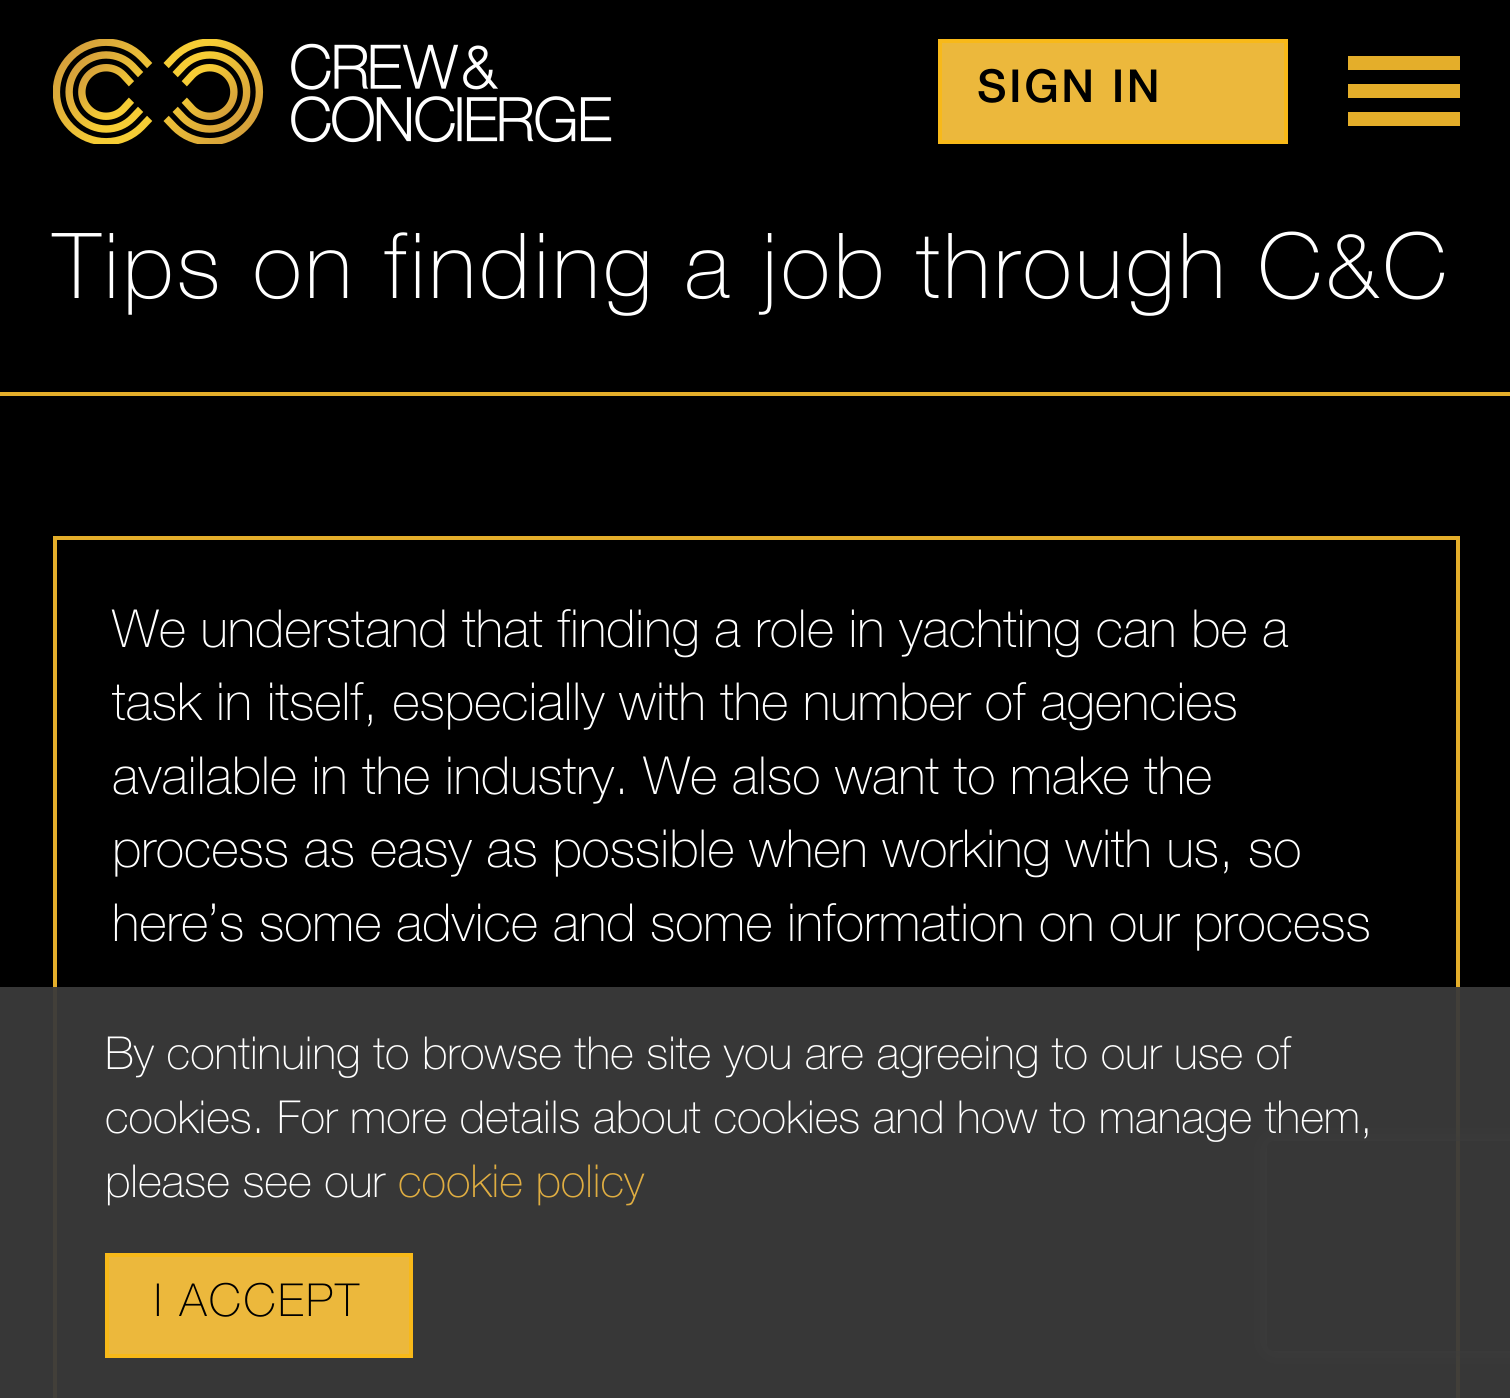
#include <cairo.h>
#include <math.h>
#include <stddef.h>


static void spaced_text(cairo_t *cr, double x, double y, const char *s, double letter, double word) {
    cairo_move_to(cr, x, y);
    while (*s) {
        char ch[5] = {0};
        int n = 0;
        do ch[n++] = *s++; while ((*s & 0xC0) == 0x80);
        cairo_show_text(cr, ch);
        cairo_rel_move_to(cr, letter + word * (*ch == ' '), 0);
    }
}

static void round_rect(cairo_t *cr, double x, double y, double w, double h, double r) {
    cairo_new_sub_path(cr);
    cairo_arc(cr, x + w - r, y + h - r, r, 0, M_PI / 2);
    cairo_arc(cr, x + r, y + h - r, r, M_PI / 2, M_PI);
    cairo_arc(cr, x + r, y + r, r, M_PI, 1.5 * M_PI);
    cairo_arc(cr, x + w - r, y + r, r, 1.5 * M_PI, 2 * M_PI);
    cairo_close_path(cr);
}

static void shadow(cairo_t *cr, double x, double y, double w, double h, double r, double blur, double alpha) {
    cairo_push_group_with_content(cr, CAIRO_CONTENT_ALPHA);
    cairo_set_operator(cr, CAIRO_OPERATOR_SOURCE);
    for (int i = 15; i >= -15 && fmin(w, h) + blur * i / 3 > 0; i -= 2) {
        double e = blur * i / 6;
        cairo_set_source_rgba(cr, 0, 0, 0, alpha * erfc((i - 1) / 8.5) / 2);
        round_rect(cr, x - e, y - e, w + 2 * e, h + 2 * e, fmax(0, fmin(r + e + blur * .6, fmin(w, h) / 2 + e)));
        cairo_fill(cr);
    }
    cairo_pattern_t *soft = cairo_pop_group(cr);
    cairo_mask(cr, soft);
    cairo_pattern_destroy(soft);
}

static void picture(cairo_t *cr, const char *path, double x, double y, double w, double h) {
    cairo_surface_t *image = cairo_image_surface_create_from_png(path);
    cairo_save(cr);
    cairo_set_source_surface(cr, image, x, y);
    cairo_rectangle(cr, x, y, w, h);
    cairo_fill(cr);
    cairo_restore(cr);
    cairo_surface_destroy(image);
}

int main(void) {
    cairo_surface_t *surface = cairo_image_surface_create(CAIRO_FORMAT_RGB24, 1510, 1398);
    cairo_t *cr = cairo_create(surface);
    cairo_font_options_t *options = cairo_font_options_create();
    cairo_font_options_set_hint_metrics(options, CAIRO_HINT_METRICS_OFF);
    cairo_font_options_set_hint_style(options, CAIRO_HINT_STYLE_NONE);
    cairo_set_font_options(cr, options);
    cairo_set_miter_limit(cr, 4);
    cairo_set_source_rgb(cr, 0, 0, 0);
    cairo_paint(cr);
    picture(cr, "img1.png", 53, 39, 559, 105);
    cairo_set_source_rgb(cr, 0.894, 0.682, 0.165);
    cairo_rectangle(cr, 1348, 84, 112, 14);
    cairo_fill(cr);
    cairo_rectangle(cr, 1348, 56, 112, 14);
    cairo_fill(cr);
    cairo_rectangle(cr, 1348, 112, 112, 14);
    cairo_fill(cr);
    cairo_set_source_rgb(cr, 0.922, 0.722, 0.235);
    cairo_rectangle(cr, 940, 41, 346, 101);
    cairo_fill_preserve(cr);
    cairo_set_source_rgb(cr, 0.969, 0.725, 0.098);
    cairo_set_line_width(cr, 4);
    cairo_stroke(cr);
    cairo_select_font_face(cr, "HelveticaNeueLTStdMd", CAIRO_FONT_SLANT_NORMAL, CAIRO_FONT_WEIGHT_NORMAL);
    cairo_set_font_size(cr, 45.5);
    cairo_set_source_rgb(cr, 0, 0, 0);
    spaced_text(cr, 977, 102, "SIGN IN", 2.5, 0);
    cairo_set_source_rgb(cr, 0.894, 0.682, 0.165);
    cairo_rectangle(cr, 0, 392, 1510, 4);
    cairo_fill(cr);
    cairo_select_font_face(cr, "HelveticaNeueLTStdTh", CAIRO_FONT_SLANT_NORMAL, CAIRO_FONT_WEIGHT_NORMAL);
    cairo_set_font_size(cr, 91);
    cairo_set_source_rgb(cr, 1, 1, 1);
    spaced_text(cr, 53, 298, "Tips on finding a job through C&C", 3.5, 0);
    cairo_rectangle(cr, 55, 538, 1403, 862);
    cairo_set_source_rgb(cr, 0.894, 0.682, 0.165);
    cairo_stroke(cr);
    cairo_set_font_size(cr, 52.5);
    cairo_set_source_rgb(cr, 1, 1, 1);
    cairo_move_to(cr, 112, 647);
    cairo_show_text(cr, "We understand that finding a role in yachting can be a");
    cairo_move_to(cr, 112, 720);
    cairo_show_text(cr, "task in itself, especially with the number of agencies");
    cairo_move_to(cr, 112, 794);
    cairo_show_text(cr, "available in the industry. We also want to make the");
    cairo_move_to(cr, 112, 867);
    cairo_show_text(cr, "process as easy as possible when working with us, so");
    cairo_move_to(cr, 112, 941);
    cairo_show_text(cr, "here’s some advice and some information on our process");
    cairo_save(cr);
    cairo_set_fill_rule(cr, CAIRO_FILL_RULE_EVEN_ODD);
    cairo_new_path(cr);
    cairo_move_to(cr, 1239, 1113);
    cairo_line_to(cr, 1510, 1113);
    cairo_line_to(cr, 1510, 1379);
    cairo_line_to(cr, 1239, 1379);
    cairo_close_path(cr);
    cairo_move_to(cr, 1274, 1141);
    cairo_line_to(cr, 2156, 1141);
    cairo_curve_to(cr, 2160, 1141, 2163, 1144, 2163, 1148);
    cairo_line_to(cr, 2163, 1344);
    cairo_curve_to(cr, 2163, 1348, 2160, 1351, 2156, 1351);
    cairo_line_to(cr, 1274, 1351);
    cairo_curve_to(cr, 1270, 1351, 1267, 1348, 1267, 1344);
    cairo_line_to(cr, 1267, 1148);
    cairo_curve_to(cr, 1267, 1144, 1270, 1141, 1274, 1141);
    cairo_close_path(cr);
    cairo_clip(cr);
    cairo_set_source_rgb(cr, 0.502, 0.502, 0.502);
    shadow(cr, 1267, 1141, 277, 210, 7, 9, 1);
    cairo_restore(cr);
    cairo_set_source_rgba(cr, 0.227, 0.227, 0.227, 0.95);
    cairo_rectangle(cr, 0, 987, 1510, 411);
    cairo_fill(cr);
    cairo_set_font_size(cr, 45.5);
    cairo_set_source_rgb(cr, 1, 1, 1);
    cairo_move_to(cr, 105, 1069);
    cairo_show_text(cr, "By continuing to browse the site you are agreeing to our use of");
    cairo_move_to(cr, 105, 1133);
    cairo_show_text(cr, "cookies. For more details about cookies and how to manage them,");
    cairo_move_to(cr, 105, 1197);
    cairo_show_text(cr, "please see our");
    cairo_set_source_rgb(cr, 0.875, 0.678, 0.255);
    cairo_move_to(cr, 398, 1197);
    cairo_show_text(cr, "cookie policy");
    cairo_set_source_rgb(cr, 0.922, 0.722, 0.235);
    cairo_rectangle(cr, 107, 1255, 304, 101);
    cairo_fill_preserve(cr);
    cairo_set_source_rgb(cr, 0.969, 0.725, 0.098);
    cairo_stroke(cr);
    cairo_set_source_rgb(cr, 0, 0, 0);
    spaced_text(cr, 154, 1316, "I ACCEPT", 2.5, 0);
    cairo_surface_write_to_png(surface, "page.png");
    cairo_font_options_destroy(options);
    cairo_destroy(cr);
    cairo_surface_destroy(surface);
    return 0;
}
